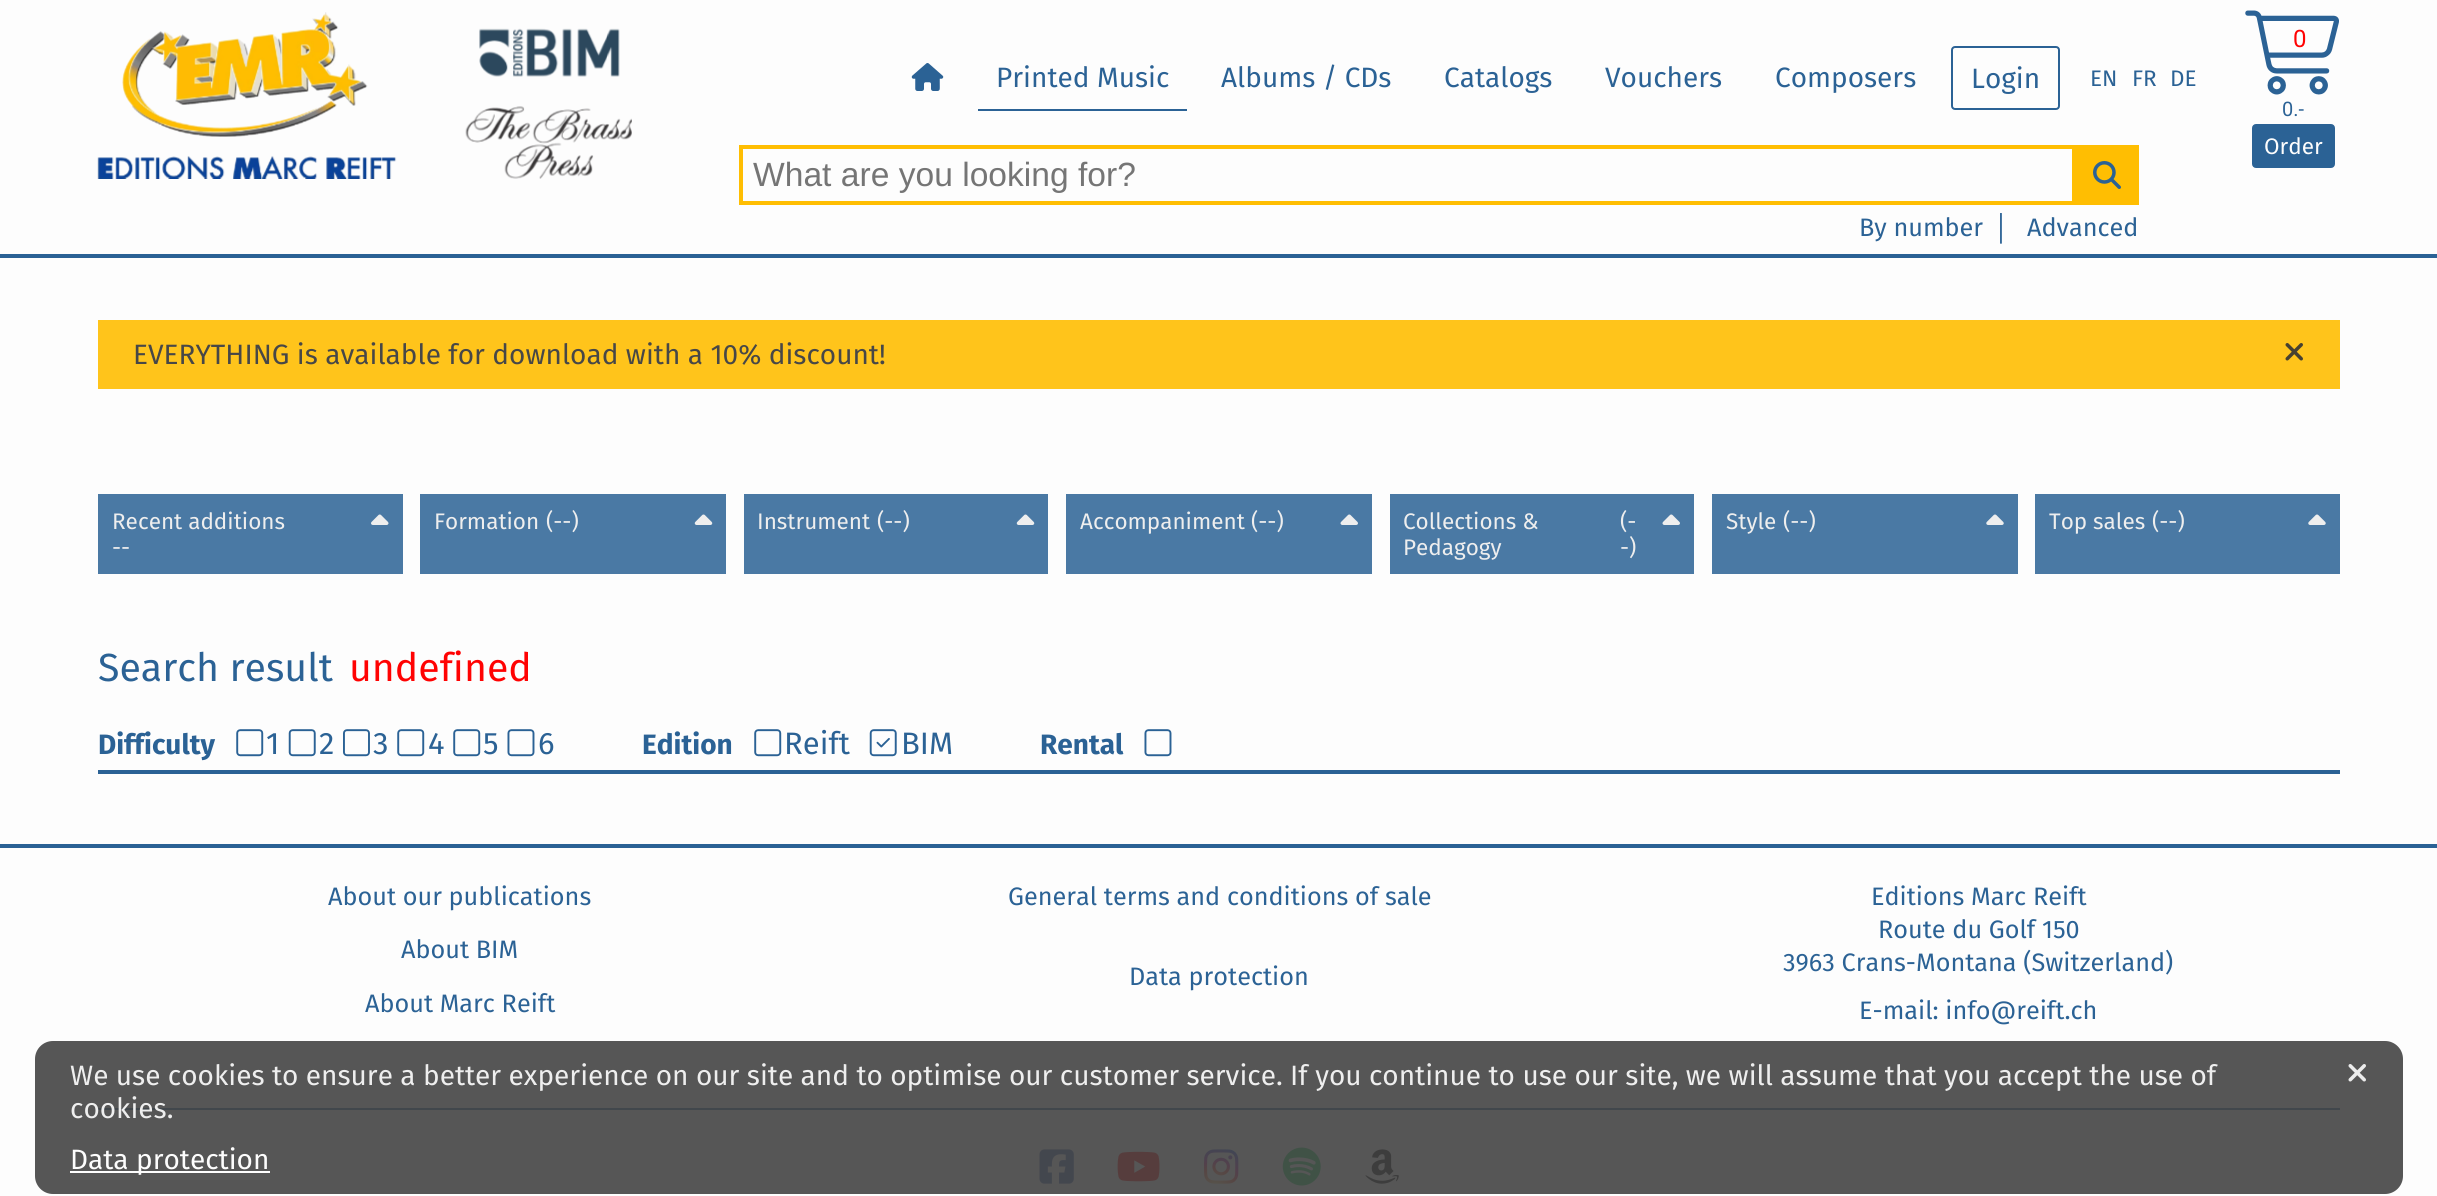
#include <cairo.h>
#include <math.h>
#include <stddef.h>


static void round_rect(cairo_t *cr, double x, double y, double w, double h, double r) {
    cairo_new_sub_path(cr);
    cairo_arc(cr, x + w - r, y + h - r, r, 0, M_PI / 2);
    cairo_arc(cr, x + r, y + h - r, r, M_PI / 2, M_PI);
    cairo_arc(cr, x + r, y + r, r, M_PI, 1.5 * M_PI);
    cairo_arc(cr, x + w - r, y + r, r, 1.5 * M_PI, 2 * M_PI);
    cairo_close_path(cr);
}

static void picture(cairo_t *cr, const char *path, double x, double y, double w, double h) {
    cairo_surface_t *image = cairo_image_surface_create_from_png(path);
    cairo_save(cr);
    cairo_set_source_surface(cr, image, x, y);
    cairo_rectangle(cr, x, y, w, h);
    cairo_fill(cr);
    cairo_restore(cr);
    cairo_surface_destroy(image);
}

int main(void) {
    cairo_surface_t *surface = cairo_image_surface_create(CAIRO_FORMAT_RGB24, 2437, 1196);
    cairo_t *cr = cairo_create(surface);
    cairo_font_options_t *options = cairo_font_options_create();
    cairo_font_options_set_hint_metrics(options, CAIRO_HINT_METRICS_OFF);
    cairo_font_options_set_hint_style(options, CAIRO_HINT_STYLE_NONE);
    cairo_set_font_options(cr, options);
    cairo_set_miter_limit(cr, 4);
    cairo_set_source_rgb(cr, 0.992, 0.992, 0.992);
    cairo_paint(cr);
    cairo_set_source_rgb(cr, 0.169, 0.384, 0.584);
    cairo_rectangle(cr, 0, 254, 2437, 4);
    cairo_fill(cr);
    picture(cr, "img1.png", 97, 12, 300, 167);
    picture(cr, "img2.png", 479, 28, 141, 49);
    picture(cr, "img3.png", 465, 106, 167, 73);
    picture(cr, "img4.png", 911, 63, 33, 28);
    cairo_rectangle(cr, 978, 109, 209, 2);
    cairo_fill(cr);
    cairo_select_font_face(cr, "Fira Sans", CAIRO_FONT_SLANT_NORMAL, CAIRO_FONT_WEIGHT_NORMAL);
    cairo_set_font_size(cr, 28);
    cairo_move_to(cr, 996, 87);
    cairo_show_text(cr, "Printed Music");
    cairo_move_to(cr, 1221, 87);
    cairo_show_text(cr, "Albums / CDs");
    cairo_move_to(cr, 1444, 87);
    cairo_show_text(cr, "Catalogs");
    cairo_move_to(cr, 1605, 87);
    cairo_show_text(cr, "Vouchers");
    cairo_move_to(cr, 1775, 87);
    cairo_show_text(cr, "Composers");
    round_rect(cr, 1952, 47, 107, 62, 3);
    cairo_stroke(cr);
    cairo_move_to(cr, 1971, 88);
    cairo_show_text(cr, "Login");
    cairo_set_font_size(cr, 22.5);
    cairo_move_to(cr, 2090, 86);
    cairo_show_text(cr, "EN");
    cairo_move_to(cr, 2132, 86);
    cairo_show_text(cr, "FR");
    cairo_move_to(cr, 2170, 86);
    cairo_show_text(cr, "DE");
    cairo_rectangle(cr, 741, 147, 1333, 56);
    cairo_set_source_rgb(cr, 1, 0.745, 0.008);
    cairo_set_line_width(cr, 4);
    cairo_stroke(cr);
    cairo_select_font_face(cr, "Liberation Sans", CAIRO_FONT_SLANT_NORMAL, CAIRO_FONT_WEIGHT_NORMAL);
    cairo_set_font_size(cr, 33.6);
    cairo_set_source_rgb(cr, 0.459, 0.459, 0.459);
    cairo_move_to(cr, 753, 186);
    cairo_show_text(cr, "What are you looking for?");
    cairo_set_source_rgb(cr, 1, 0.745, 0.008);
    cairo_rectangle(cr, 2076, 145, 63, 60);
    cairo_fill(cr);
    picture(cr, "img5.png", 2093, 161, 28, 28);
    cairo_select_font_face(cr, "Fira Sans", CAIRO_FONT_SLANT_NORMAL, CAIRO_FONT_WEIGHT_NORMAL);
    cairo_set_font_size(cr, 25.25);
    cairo_set_source_rgb(cr, 0.169, 0.384, 0.584);
    cairo_move_to(cr, 1859, 236);
    cairo_show_text(cr, "By number");
    cairo_select_font_face(cr, "Liberation Serif", CAIRO_FONT_SLANT_NORMAL, CAIRO_FONT_WEIGHT_NORMAL);
    cairo_move_to(cr, 1992, 236);
    cairo_show_text(cr, "│");
    cairo_select_font_face(cr, "Fira Sans", CAIRO_FONT_SLANT_NORMAL, CAIRO_FONT_WEIGHT_NORMAL);
    cairo_move_to(cr, 2027, 236);
    cairo_show_text(cr, "Advanced");
    picture(cr, "img6.png", 2245, 10, 94, 85);
    cairo_select_font_face(cr, "Roboto", CAIRO_FONT_SLANT_NORMAL, CAIRO_FONT_WEIGHT_NORMAL);
    cairo_set_font_size(cr, 24);
    cairo_set_source_rgb(cr, 1, 0.008, 0.008);
    cairo_move_to(cr, 2293, 47);
    cairo_show_text(cr, "0");
    cairo_set_font_size(cr, 20);
    cairo_set_source_rgb(cr, 0.169, 0.384, 0.584);
    cairo_move_to(cr, 2282, 116);
    cairo_show_text(cr, "0.-");
    round_rect(cr, 2253, 125, 81, 42, 3);
    cairo_fill_preserve(cr);
    cairo_set_line_width(cr, 2);
    cairo_stroke(cr);
    cairo_select_font_face(cr, "Fira Sans", CAIRO_FONT_SLANT_NORMAL, CAIRO_FONT_WEIGHT_NORMAL);
    cairo_set_font_size(cr, 22.5);
    cairo_set_source_rgb(cr, 0.992, 0.992, 0.992);
    cairo_move_to(cr, 2264, 154);
    cairo_show_text(cr, "Order");
    cairo_set_source_rgb(cr, 1, 0.769, 0.106);
    cairo_rectangle(cr, 98, 320, 2242, 69);
    cairo_fill(cr);
    cairo_set_font_size(cr, 28);
    cairo_set_source_rgb(cr, 0.278, 0.278, 0.278);
    cairo_move_to(cr, 133, 364);
    cairo_show_text(cr, "EVERYTHING is available for download with a 10% discount!");
    picture(cr, "img7.png", 2285, 343, 18, 18);
    cairo_set_source_rgb(cr, 0.29, 0.475, 0.643);
    cairo_rectangle(cr, 98, 494, 305, 80);
    cairo_fill(cr);
    cairo_set_font_size(cr, 22.5);
    cairo_set_source_rgb(cr, 0.933, 0.933, 0.933);
    cairo_move_to(cr, 112, 529);
    cairo_show_text(cr, "Recent additions");
    cairo_move_to(cr, 112, 555);
    cairo_show_text(cr, "--");
    picture(cr, "img8.png", 371, 514, 18, 11);
    cairo_set_source_rgb(cr, 0.29, 0.475, 0.643);
    cairo_rectangle(cr, 420, 494, 306, 80);
    cairo_fill(cr);
    cairo_set_source_rgb(cr, 0.933, 0.933, 0.933);
    cairo_move_to(cr, 434, 529);
    cairo_show_text(cr, "Formation");
    cairo_move_to(cr, 546, 529);
    cairo_show_text(cr, "(--)");
    picture(cr, "img9.png", 694, 514, 19, 11);
    cairo_set_source_rgb(cr, 0.29, 0.475, 0.643);
    cairo_rectangle(cr, 744, 494, 304, 80);
    cairo_fill(cr);
    cairo_set_source_rgb(cr, 0.933, 0.933, 0.933);
    cairo_move_to(cr, 757, 529);
    cairo_show_text(cr, "Instrument");
    cairo_move_to(cr, 877, 529);
    cairo_show_text(cr, "(--)");
    picture(cr, "img9.png", 1016, 514, 19, 11);
    cairo_set_source_rgb(cr, 0.29, 0.475, 0.643);
    cairo_rectangle(cr, 1066, 494, 306, 80);
    cairo_fill(cr);
    cairo_set_source_rgb(cr, 0.933, 0.933, 0.933);
    cairo_move_to(cr, 1080, 529);
    cairo_show_text(cr, "Accompaniment");
    cairo_move_to(cr, 1251, 529);
    cairo_show_text(cr, "(--)");
    picture(cr, "img10.png", 1340, 514, 18, 11);
    cairo_set_source_rgb(cr, 0.29, 0.475, 0.643);
    cairo_rectangle(cr, 1390, 494, 304, 80);
    cairo_fill(cr);
    cairo_set_source_rgb(cr, 0.933, 0.933, 0.933);
    cairo_move_to(cr, 1403, 529);
    cairo_show_text(cr, "Collections &");
    cairo_move_to(cr, 1403, 555);
    cairo_show_text(cr, "Pedagogy");
    cairo_move_to(cr, 1620, 529);
    cairo_show_text(cr, "(-");
    cairo_move_to(cr, 1620, 555);
    cairo_show_text(cr, "-)");
    picture(cr, "img10.png", 1662, 514, 18, 11);
    cairo_set_source_rgb(cr, 0.29, 0.475, 0.643);
    cairo_rectangle(cr, 1712, 494, 306, 80);
    cairo_fill(cr);
    cairo_set_source_rgb(cr, 0.933, 0.933, 0.933);
    cairo_move_to(cr, 1726, 529);
    cairo_show_text(cr, "Style");
    cairo_move_to(cr, 1783, 529);
    cairo_show_text(cr, "(--)");
    picture(cr, "img11.png", 1986, 514, 18, 11);
    cairo_set_source_rgb(cr, 0.29, 0.475, 0.643);
    cairo_rectangle(cr, 2035, 494, 305, 80);
    cairo_fill(cr);
    cairo_set_source_rgb(cr, 0.933, 0.933, 0.933);
    cairo_move_to(cr, 2049, 529);
    cairo_show_text(cr, "Top sales");
    cairo_move_to(cr, 2152, 529);
    cairo_show_text(cr, "(--)");
    picture(cr, "img11.png", 2308, 514, 18, 11);
    cairo_set_source_rgb(cr, 0.169, 0.384, 0.584);
    cairo_rectangle(cr, 98, 770, 2242, 4);
    cairo_fill(cr);
    cairo_set_font_size(cr, 39.25);
    cairo_move_to(cr, 98, 681);
    cairo_show_text(cr, "Search result");
    cairo_set_source_rgb(cr, 1, 0.008, 0.008);
    cairo_move_to(cr, 349, 681);
    cairo_show_text(cr, "undefined");
    cairo_select_font_face(cr, "Fira Sans", CAIRO_FONT_SLANT_NORMAL, CAIRO_FONT_WEIGHT_BOLD);
    cairo_set_font_size(cr, 28);
    cairo_set_source_rgb(cr, 0.169, 0.384, 0.584);
    cairo_move_to(cr, 98, 754);
    cairo_show_text(cr, "Difficulty");
    picture(cr, "img12.png", 236, 729, 28, 28);
    cairo_select_font_face(cr, "Fira Sans", CAIRO_FONT_SLANT_NORMAL, CAIRO_FONT_WEIGHT_NORMAL);
    cairo_set_font_size(cr, 31);
    cairo_move_to(cr, 266, 754);
    cairo_show_text(cr, "1");
    picture(cr, "img13.png", 288, 729, 28, 28);
    cairo_move_to(cr, 319, 754);
    cairo_show_text(cr, "2");
    picture(cr, "img14.png", 343, 729, 27, 28);
    cairo_move_to(cr, 373, 754);
    cairo_show_text(cr, "3");
    picture(cr, "img12.png", 397, 729, 28, 28);
    cairo_move_to(cr, 428, 754);
    cairo_show_text(cr, "4");
    picture(cr, "img12.png", 453, 729, 28, 28);
    cairo_move_to(cr, 483, 754);
    cairo_show_text(cr, "5");
    picture(cr, "img15.png", 507, 729, 28, 28);
    cairo_move_to(cr, 538, 754);
    cairo_show_text(cr, "6");
    cairo_select_font_face(cr, "Fira Sans", CAIRO_FONT_SLANT_NORMAL, CAIRO_FONT_WEIGHT_BOLD);
    cairo_set_font_size(cr, 28);
    cairo_move_to(cr, 642, 754);
    cairo_show_text(cr, "Edition");
    picture(cr, "img12.png", 754, 729, 28, 28);
    cairo_select_font_face(cr, "Fira Sans", CAIRO_FONT_SLANT_NORMAL, CAIRO_FONT_WEIGHT_NORMAL);
    cairo_set_font_size(cr, 31);
    cairo_move_to(cr, 784, 754);
    cairo_show_text(cr, "Reift");
    picture(cr, "img16.png", 869, 729, 28, 28);
    cairo_move_to(cr, 901, 754);
    cairo_show_text(cr, "BIM");
    cairo_select_font_face(cr, "Fira Sans", CAIRO_FONT_SLANT_NORMAL, CAIRO_FONT_WEIGHT_BOLD);
    cairo_set_font_size(cr, 28);
    cairo_move_to(cr, 1040, 754);
    cairo_show_text(cr, "Rental");
    picture(cr, "img15.png", 1144, 729, 28, 28);
    cairo_rectangle(cr, 0, 844, 2437, 4);
    cairo_fill(cr);
    cairo_select_font_face(cr, "Fira Sans", CAIRO_FONT_SLANT_NORMAL, CAIRO_FONT_WEIGHT_NORMAL);
    cairo_set_font_size(cr, 25.25);
    cairo_move_to(cr, 328, 905);
    cairo_show_text(cr, "About our publications");
    cairo_move_to(cr, 401, 958);
    cairo_show_text(cr, "About BIM");
    cairo_move_to(cr, 365, 1012);
    cairo_show_text(cr, "About Marc Reift");
    cairo_move_to(cr, 1008, 905);
    cairo_show_text(cr, "General terms and conditions of sale");
    cairo_move_to(cr, 1129, 985);
    cairo_show_text(cr, "Data protection");
    cairo_move_to(cr, 1871, 905);
    cairo_show_text(cr, "Editions Marc Reift");
    cairo_move_to(cr, 1878, 938);
    cairo_show_text(cr, "Route du Golf 150");
    cairo_move_to(cr, 1783, 971);
    cairo_show_text(cr, "3963 Crans-Montana (Switzerland)");
    cairo_move_to(cr, 1859, 1019);
    cairo_show_text(cr, "E-mail: info@reift.ch");
    cairo_rectangle(cr, 98, 1108, 2242, 2);
    cairo_fill(cr);
    picture(cr, "img17.png", 1039, 1149, 35, 35);
    picture(cr, "img18.png", 1117, 1151, 43, 31);
    picture(cr, "img19.png", 1204, 1149, 35, 35);
    picture(cr, "img20.png", 1282, 1147, 39, 39);
    picture(cr, "img21.png", 1365, 1149, 34, 35);
    cairo_set_source_rgba(cr, 0.267, 0.267, 0.267, 0.9);
    round_rect(cr, 35, 1041, 2368, 153, 18);
    cairo_fill(cr);
    cairo_set_font_size(cr, 28);
    cairo_set_source_rgb(cr, 0.933, 0.933, 0.933);
    cairo_move_to(cr, 70, 1085);
    cairo_show_text(cr, "We use cookies to ensure a better experience on our site and to optimise our customer service. If you continue to use our site, we will assume that you accept the use of");
    cairo_move_to(cr, 70, 1118);
    cairo_show_text(cr, "cookies.");
    cairo_set_source_rgb(cr, 0.992, 0.992, 0.992);
    cairo_rectangle(cr, 70, 1171, 200, 2);
    cairo_fill(cr);
    cairo_move_to(cr, 70, 1169);
    cairo_show_text(cr, "Data protection");
    picture(cr, "img22.png", 2348, 1064, 18, 18);
    cairo_surface_write_to_png(surface, "page.png");
    cairo_font_options_destroy(options);
    cairo_destroy(cr);
    cairo_surface_destroy(surface);
    return 0;
}
